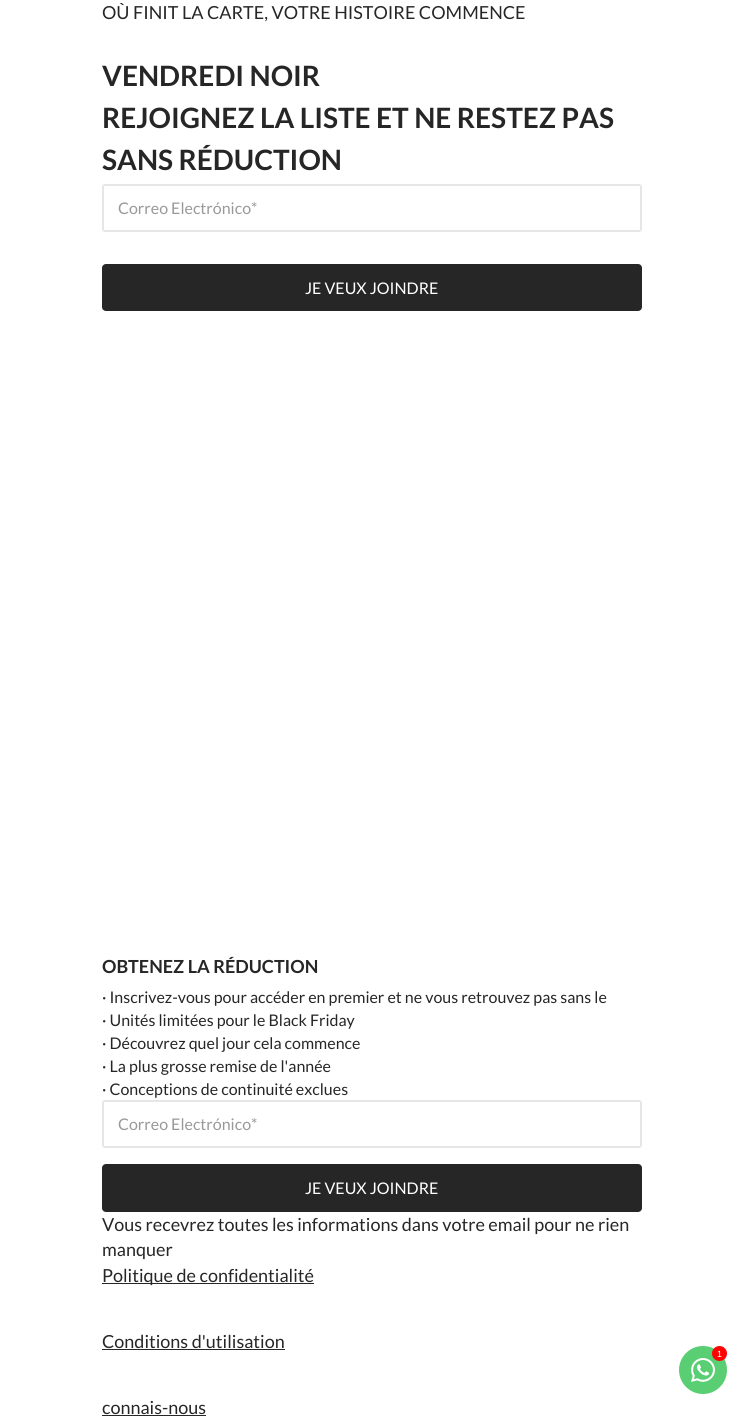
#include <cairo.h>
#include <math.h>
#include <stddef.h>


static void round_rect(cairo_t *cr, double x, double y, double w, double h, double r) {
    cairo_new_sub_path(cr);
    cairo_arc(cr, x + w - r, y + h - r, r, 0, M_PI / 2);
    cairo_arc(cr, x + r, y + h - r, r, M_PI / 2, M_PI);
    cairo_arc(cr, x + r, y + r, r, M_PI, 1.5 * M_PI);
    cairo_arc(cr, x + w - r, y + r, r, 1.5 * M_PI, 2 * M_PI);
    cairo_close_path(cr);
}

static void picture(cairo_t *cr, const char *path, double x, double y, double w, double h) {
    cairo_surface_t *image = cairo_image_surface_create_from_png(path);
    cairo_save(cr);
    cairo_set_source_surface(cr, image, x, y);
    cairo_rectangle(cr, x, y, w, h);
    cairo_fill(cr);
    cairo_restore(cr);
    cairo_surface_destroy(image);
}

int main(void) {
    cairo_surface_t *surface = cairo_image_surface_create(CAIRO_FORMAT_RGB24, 744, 1421);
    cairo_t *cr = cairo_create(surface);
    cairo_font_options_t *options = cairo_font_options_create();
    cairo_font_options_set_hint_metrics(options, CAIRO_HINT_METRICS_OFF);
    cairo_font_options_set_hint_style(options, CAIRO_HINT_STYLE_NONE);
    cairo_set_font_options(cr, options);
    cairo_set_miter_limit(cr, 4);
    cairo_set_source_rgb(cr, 1, 1, 1);
    cairo_paint(cr);
    cairo_select_font_face(cr, "Lato", CAIRO_FONT_SLANT_NORMAL, CAIRO_FONT_WEIGHT_NORMAL);
    cairo_set_font_size(cr, 18);
    cairo_set_source_rgb(cr, 0.149, 0.149, 0.149);
    cairo_move_to(cr, 102, 19);
    cairo_show_text(cr, "OÙ FINIT LA CARTE, VOTRE HISTOIRE COMMENCE");
    cairo_select_font_face(cr, "Lato", CAIRO_FONT_SLANT_NORMAL, CAIRO_FONT_WEIGHT_BOLD);
    cairo_set_font_size(cr, 28);
    cairo_move_to(cr, 102, 86);
    cairo_show_text(cr, "VENDREDI NOIR");
    cairo_move_to(cr, 102, 128);
    cairo_show_text(cr, "REJOIGNEZ LA LISTE ET NE RESTEZ PAS");
    cairo_move_to(cr, 102, 170);
    cairo_show_text(cr, "SANS RÉDUCTION");
    round_rect(cr, 103, 185, 538, 46, 2);
    cairo_set_source_rgb(cr, 0.902, 0.902, 0.902);
    cairo_stroke(cr);
    cairo_select_font_face(cr, "Lato", CAIRO_FONT_SLANT_NORMAL, CAIRO_FONT_WEIGHT_NORMAL);
    cairo_set_font_size(cr, 16);
    cairo_set_source_rgb(cr, 0.6, 0.6, 0.6);
    cairo_move_to(cr, 118, 214);
    cairo_show_text(cr, "Correo Electrónico*");
    cairo_set_source_rgb(cr, 0.149, 0.149, 0.149);
    round_rect(cr, 102, 264, 540, 47, 4);
    cairo_fill(cr);
    cairo_set_source_rgb(cr, 1, 1, 1);
    cairo_move_to(cr, 305, 294);
    cairo_show_text(cr, "JE VEUX JOINDRE");
    cairo_select_font_face(cr, "Lato", CAIRO_FONT_SLANT_NORMAL, CAIRO_FONT_WEIGHT_BOLD);
    cairo_set_font_size(cr, 18);
    cairo_set_source_rgb(cr, 0.149, 0.149, 0.149);
    cairo_move_to(cr, 102, 973);
    cairo_show_text(cr, "OBTENEZ LA RÉDUCTION");
    cairo_select_font_face(cr, "Lato", CAIRO_FONT_SLANT_NORMAL, CAIRO_FONT_WEIGHT_NORMAL);
    cairo_set_font_size(cr, 16);
    cairo_move_to(cr, 102, 1003);
    cairo_show_text(cr, "· Inscrivez-vous pour accéder en premier et ne vous retrouvez pas sans le");
    cairo_move_to(cr, 102, 1026);
    cairo_show_text(cr, "· Unités limitées pour le Black Friday");
    cairo_move_to(cr, 102, 1049);
    cairo_show_text(cr, "· Découvrez quel jour cela commence");
    cairo_move_to(cr, 102, 1072);
    cairo_show_text(cr, "· La plus grosse remise de l'année");
    cairo_move_to(cr, 102, 1095);
    cairo_show_text(cr, "· Conceptions de continuité exclues");
    round_rect(cr, 103, 1101, 538, 46, 2);
    cairo_set_source_rgb(cr, 0.902, 0.902, 0.902);
    cairo_stroke(cr);
    cairo_set_source_rgb(cr, 0.6, 0.6, 0.6);
    cairo_move_to(cr, 118, 1130);
    cairo_show_text(cr, "Correo Electrónico*");
    cairo_set_source_rgb(cr, 0.149, 0.149, 0.149);
    round_rect(cr, 102, 1164, 540, 48, 4);
    cairo_fill(cr);
    cairo_set_source_rgb(cr, 1, 1, 1);
    cairo_move_to(cr, 305, 1194);
    cairo_show_text(cr, "JE VEUX JOINDRE");
    cairo_set_font_size(cr, 18);
    cairo_set_source_rgb(cr, 0.149, 0.149, 0.149);
    cairo_move_to(cr, 102, 1231);
    cairo_show_text(cr, "Vous recevrez toutes les informations dans votre email pour ne rien");
    cairo_move_to(cr, 102, 1256);
    cairo_show_text(cr, "manquer");
    cairo_rectangle(cr, 102, 1283, 212, 1);
    cairo_fill(cr);
    cairo_move_to(cr, 102, 1282);
    cairo_show_text(cr, "Politique de confidentialité");
    cairo_move_to(cr, 102, 1348);
    cairo_show_text(cr, "Conditions d'utilisation");
    cairo_rectangle(cr, 102, 1349, 183, 1);
    cairo_fill(cr);
    cairo_move_to(cr, 102, 1414);
    cairo_show_text(cr, "connais-nous");
    cairo_rectangle(cr, 102, 1415, 104, 1);
    cairo_fill(cr);
    cairo_set_source_rgb(cr, 0.349, 0.808, 0.447);
    cairo_arc(cr, 703, 1370, 24, 0, 2 * M_PI);
    cairo_fill(cr);
    picture(cr, "img1.png", 691, 1358, 24, 24);
    cairo_set_source_rgb(cr, 1, 0.012, 0.012);
    cairo_arc(cr, 719.5, 1353.5, 7.5, 0, 2 * M_PI);
    cairo_fill(cr);
    cairo_select_font_face(cr, "Liberation Sans", CAIRO_FONT_SLANT_NORMAL, CAIRO_FONT_WEIGHT_NORMAL);
    cairo_set_font_size(cr, 9);
    cairo_set_source_rgb(cr, 1, 1, 1);
    cairo_move_to(cr, 717, 1357);
    cairo_show_text(cr, "1");
    cairo_surface_write_to_png(surface, "page.png");
    cairo_font_options_destroy(options);
    cairo_destroy(cr);
    cairo_surface_destroy(surface);
    return 0;
}
